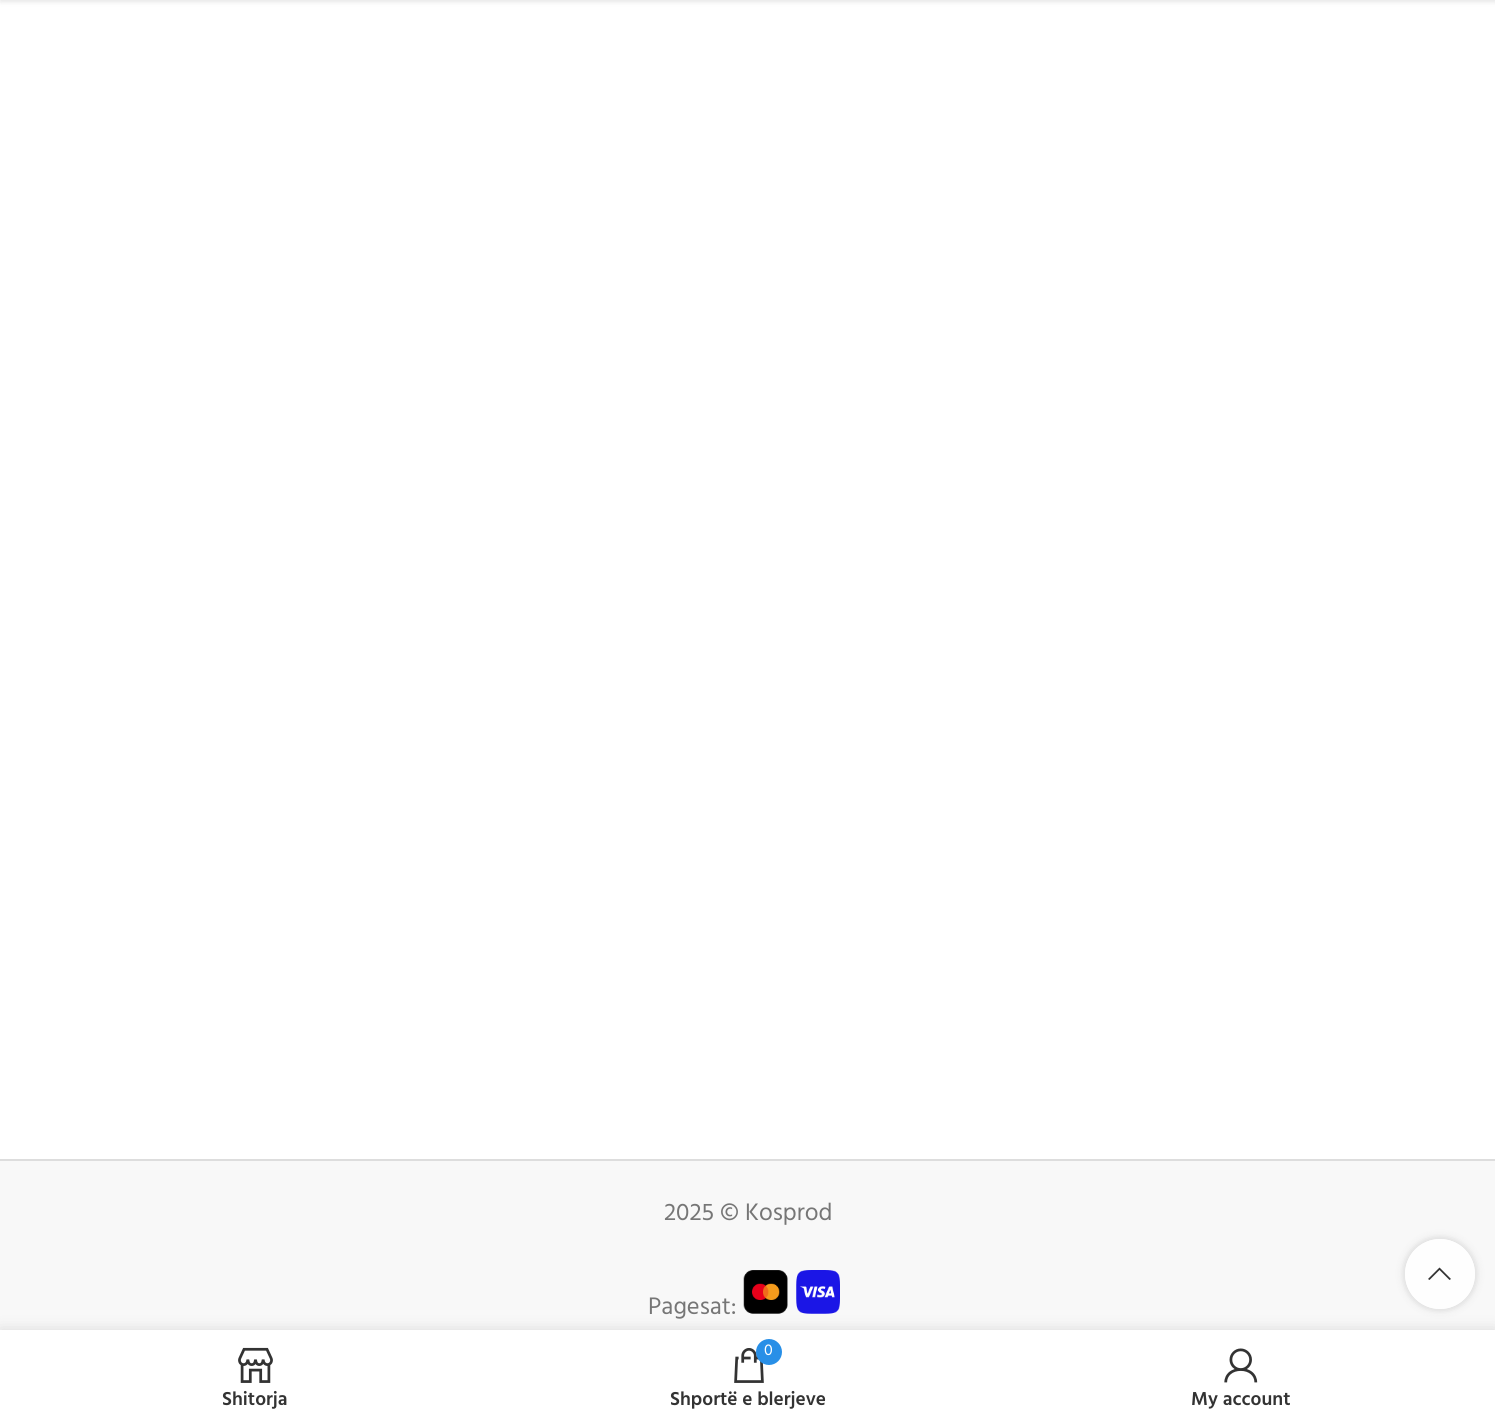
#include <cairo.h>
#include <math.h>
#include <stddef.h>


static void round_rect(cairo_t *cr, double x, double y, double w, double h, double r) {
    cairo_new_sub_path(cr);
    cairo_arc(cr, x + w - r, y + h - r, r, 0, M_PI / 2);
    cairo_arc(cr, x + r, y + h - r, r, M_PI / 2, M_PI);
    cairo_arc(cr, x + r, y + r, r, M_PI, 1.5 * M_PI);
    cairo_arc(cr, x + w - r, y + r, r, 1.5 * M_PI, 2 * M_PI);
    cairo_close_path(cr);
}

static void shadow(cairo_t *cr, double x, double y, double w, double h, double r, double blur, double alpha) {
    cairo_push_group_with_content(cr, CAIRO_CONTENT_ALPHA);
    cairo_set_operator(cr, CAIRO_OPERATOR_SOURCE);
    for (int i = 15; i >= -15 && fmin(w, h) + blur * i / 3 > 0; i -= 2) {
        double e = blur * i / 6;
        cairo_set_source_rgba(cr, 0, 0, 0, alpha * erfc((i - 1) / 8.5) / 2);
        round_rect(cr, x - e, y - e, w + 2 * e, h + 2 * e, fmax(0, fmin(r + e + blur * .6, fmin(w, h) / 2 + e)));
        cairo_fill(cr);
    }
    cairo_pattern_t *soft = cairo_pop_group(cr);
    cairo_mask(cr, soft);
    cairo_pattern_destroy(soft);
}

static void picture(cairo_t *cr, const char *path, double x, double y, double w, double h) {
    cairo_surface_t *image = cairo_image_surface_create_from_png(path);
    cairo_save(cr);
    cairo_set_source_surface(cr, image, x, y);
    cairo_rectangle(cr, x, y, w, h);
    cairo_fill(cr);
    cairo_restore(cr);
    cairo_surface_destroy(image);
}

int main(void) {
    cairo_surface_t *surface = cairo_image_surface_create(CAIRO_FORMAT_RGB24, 1495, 1426);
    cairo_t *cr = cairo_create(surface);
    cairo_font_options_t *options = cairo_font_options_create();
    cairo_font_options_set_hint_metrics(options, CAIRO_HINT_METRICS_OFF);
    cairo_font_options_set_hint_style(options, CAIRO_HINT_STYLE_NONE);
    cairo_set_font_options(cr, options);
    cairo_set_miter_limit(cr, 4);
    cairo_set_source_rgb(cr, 1, 1, 1);
    cairo_paint(cr);
    cairo_set_source_rgb(cr, 0, 0, 0);
    shadow(cr, 0, -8, 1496, 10, 0, 2.5, 0.1);
    cairo_set_source_rgb(cr, 0.969, 0.969, 0.969);
    cairo_rectangle(cr, 0, 1161, 1495, 169);
    cairo_fill(cr);
    cairo_set_source_rgb(cr, 0.867, 0.867, 0.867);
    cairo_rectangle(cr, 0, 1159, 1495, 2);
    cairo_fill(cr);
    cairo_select_font_face(cr, "Hind", CAIRO_FONT_SLANT_NORMAL, CAIRO_FONT_WEIGHT_NORMAL);
    cairo_set_font_size(cr, 24.5);
    cairo_set_source_rgb(cr, 0.463, 0.463, 0.463);
    cairo_move_to(cr, 664, 1220);
    cairo_show_text(cr, "2025 © Kosprod");
    cairo_move_to(cr, 648, 1314);
    cairo_show_text(cr, "Pagesat:");
    picture(cr, "img1.png", 743, 1270, 45, 44);
    picture(cr, "img2.png", 796, 1270, 44, 44);
    cairo_save(cr);
    cairo_set_fill_rule(cr, CAIRO_FILL_RULE_EVEN_ODD);
    cairo_new_path(cr);
    cairo_move_to(cr, 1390, 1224);
    cairo_line_to(cr, 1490, 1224);
    cairo_line_to(cr, 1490, 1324);
    cairo_line_to(cr, 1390, 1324);
    cairo_close_path(cr);
    cairo_move_to(cr, 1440, 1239);
    cairo_curve_to(cr, 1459.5, 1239, 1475, 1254.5, 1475, 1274);
    cairo_curve_to(cr, 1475, 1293.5, 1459.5, 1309, 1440, 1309);
    cairo_curve_to(cr, 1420.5, 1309, 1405, 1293.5, 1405, 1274);
    cairo_curve_to(cr, 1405, 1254.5, 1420.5, 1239, 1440, 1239);
    cairo_close_path(cr);
    cairo_clip(cr);
    cairo_set_source_rgb(cr, 0, 0, 0);
    shadow(cr, 1405, 1239, 70, 70, 35, 4.5, 0.17);
    cairo_restore(cr);
    cairo_set_source_rgba(cr, 1, 1, 1, 0.9);
    cairo_arc(cr, 1440, 1274, 35, 0, 2 * M_PI);
    cairo_fill(cr);
    cairo_set_source_rgb(cr, 0.2, 0.2, 0.2);
    cairo_new_path(cr);
    cairo_move_to(cr, 1449.5, 1280);
    cairo_line_to(cr, 1451, 1279);
    cairo_line_to(cr, 1439.5, 1267.5);
    cairo_line_to(cr, 1428, 1279);
    cairo_line_to(cr, 1429.5, 1280);
    cairo_line_to(cr, 1439.5, 1270);
    cairo_close_path(cr);
    cairo_fill(cr);
    cairo_set_source_rgb(cr, 0, 0, 0);
    shadow(cr, 0, 1330, 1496, 96, 0, 8, 0.12);
    cairo_set_source_rgb(cr, 1, 1, 1);
    cairo_rectangle(cr, 0, 1330, 1495, 96);
    cairo_fill(cr);
    picture(cr, "img3.png", 238, 1347, 35, 36);
    cairo_select_font_face(cr, "Hind SemiBold", CAIRO_FONT_SLANT_NORMAL, CAIRO_FONT_WEIGHT_NORMAL);
    cairo_set_font_size(cr, 19.25);
    cairo_set_source_rgb(cr, 0.2, 0.2, 0.2);
    cairo_move_to(cr, 222, 1405);
    cairo_show_text(cr, "Shitorja");
    picture(cr, "img4.png", 734, 1348, 30, 35);
    cairo_set_source_rgb(cr, 0.157, 0.561, 0.906);
    cairo_arc(cr, 769, 1352, 13, 0, 2 * M_PI);
    cairo_fill(cr);
    cairo_select_font_face(cr, "Hind", CAIRO_FONT_SLANT_NORMAL, CAIRO_FONT_WEIGHT_NORMAL);
    cairo_set_font_size(cr, 16);
    cairo_set_source_rgb(cr, 1, 1, 1);
    cairo_move_to(cr, 764, 1355);
    cairo_show_text(cr, "0");
    cairo_select_font_face(cr, "Hind SemiBold", CAIRO_FONT_SLANT_NORMAL, CAIRO_FONT_WEIGHT_NORMAL);
    cairo_set_font_size(cr, 19.25);
    cairo_set_source_rgb(cr, 0.2, 0.2, 0.2);
    cairo_move_to(cr, 670, 1405);
    cairo_show_text(cr, "Shportë e blerjeve");
    picture(cr, "img5.png", 1224, 1348, 34, 35);
    cairo_move_to(cr, 1191, 1405);
    cairo_show_text(cr, "My account");
    cairo_surface_write_to_png(surface, "page.png");
    cairo_font_options_destroy(options);
    cairo_destroy(cr);
    cairo_surface_destroy(surface);
    return 0;
}
